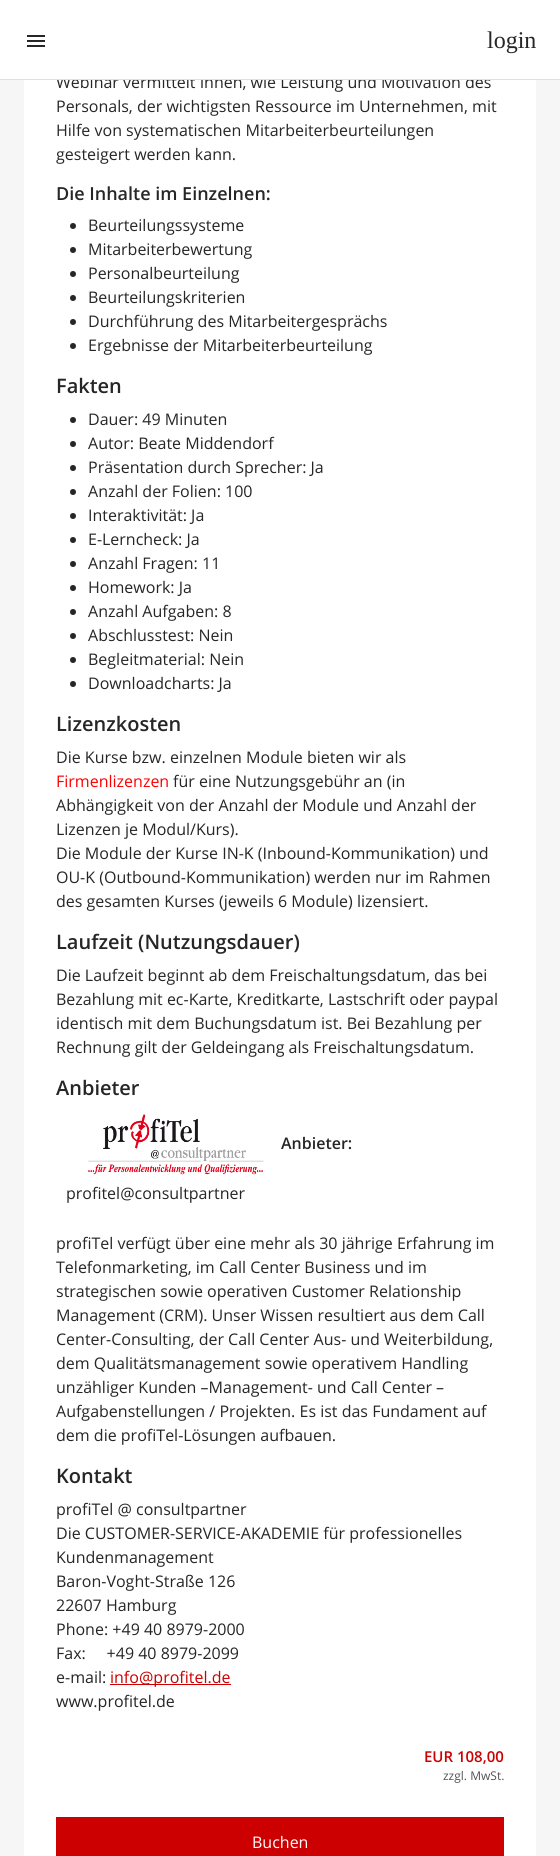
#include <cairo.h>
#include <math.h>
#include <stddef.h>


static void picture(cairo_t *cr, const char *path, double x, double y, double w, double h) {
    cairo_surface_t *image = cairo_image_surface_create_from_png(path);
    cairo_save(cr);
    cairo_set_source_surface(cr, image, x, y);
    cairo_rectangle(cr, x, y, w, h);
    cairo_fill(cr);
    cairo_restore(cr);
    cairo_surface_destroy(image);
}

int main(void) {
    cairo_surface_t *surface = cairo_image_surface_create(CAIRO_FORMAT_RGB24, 560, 1856);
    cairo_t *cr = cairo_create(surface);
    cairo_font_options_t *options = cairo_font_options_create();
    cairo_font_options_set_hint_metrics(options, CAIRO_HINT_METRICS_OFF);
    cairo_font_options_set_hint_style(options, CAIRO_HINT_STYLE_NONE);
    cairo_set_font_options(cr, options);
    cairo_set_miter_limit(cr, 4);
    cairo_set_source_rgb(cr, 0.961, 0.961, 0.961);
    cairo_paint(cr);
    cairo_set_source_rgb(cr, 1, 1, 1);
    cairo_rectangle(cr, 24, 80, 512, 1776);
    cairo_fill(cr);
    cairo_select_font_face(cr, "Open Sans", CAIRO_FONT_SLANT_NORMAL, CAIRO_FONT_WEIGHT_NORMAL);
    cairo_set_font_size(cr, 16);
    cairo_set_source_rgb(cr, 0.149, 0.149, 0.149);
    cairo_move_to(cr, 56, 88);
    cairo_show_text(cr, "Webinar vermittelt Ihnen, wie Leistung und Motivation des");
    cairo_set_source_rgb(cr, 1, 1, 1);
    cairo_rectangle(cr, 0, 0, 560, 79);
    cairo_fill(cr);
    cairo_set_source_rgb(cr, 0.878, 0.878, 0.878);
    cairo_rectangle(cr, 0, 79, 560, 1);
    cairo_fill(cr);
    picture(cr, "img1.png", 27, 35, 18, 12);
    cairo_select_font_face(cr, "Liberation Serif", CAIRO_FONT_SLANT_NORMAL, CAIRO_FONT_WEIGHT_NORMAL);
    cairo_set_font_size(cr, 24);
    cairo_set_source_rgb(cr, 0.149, 0.149, 0.149);
    cairo_move_to(cr, 487, 48);
    cairo_show_text(cr, "login");
    cairo_select_font_face(cr, "Open Sans", CAIRO_FONT_SLANT_NORMAL, CAIRO_FONT_WEIGHT_NORMAL);
    cairo_set_font_size(cr, 16);
    cairo_move_to(cr, 56, 112);
    cairo_show_text(cr, "Personals, der wichtigsten Ressource im Unternehmen, mit");
    cairo_move_to(cr, 56, 136);
    cairo_show_text(cr, "Hilfe von systematischen Mitarbeiterbeurteilungen");
    cairo_move_to(cr, 56, 160);
    cairo_show_text(cr, "gesteigert werden kann.");
    cairo_select_font_face(cr, "Open Sans SemiBold", CAIRO_FONT_SLANT_NORMAL, CAIRO_FONT_WEIGHT_NORMAL);
    cairo_set_font_size(cr, 18);
    cairo_move_to(cr, 56, 200);
    cairo_show_text(cr, "Die Inhalte im Einzelnen:");
    cairo_new_path(cr);
    cairo_arc(cr, 73, 226, 3, 0, 2 * M_PI);
    cairo_fill(cr);
    cairo_select_font_face(cr, "Open Sans", CAIRO_FONT_SLANT_NORMAL, CAIRO_FONT_WEIGHT_NORMAL);
    cairo_set_font_size(cr, 16);
    cairo_move_to(cr, 88, 231);
    cairo_show_text(cr, "Beurteilungssysteme");
    cairo_new_path(cr);
    cairo_arc(cr, 73, 250, 3, 0, 2 * M_PI);
    cairo_fill(cr);
    cairo_move_to(cr, 88, 255);
    cairo_show_text(cr, "Mitarbeiterbewertung");
    cairo_new_path(cr);
    cairo_arc(cr, 73, 274, 3, 0, 2 * M_PI);
    cairo_fill(cr);
    cairo_move_to(cr, 88, 279);
    cairo_show_text(cr, "Personalbeurteilung");
    cairo_new_path(cr);
    cairo_arc(cr, 73, 298, 3, 0, 2 * M_PI);
    cairo_fill(cr);
    cairo_move_to(cr, 88, 303);
    cairo_show_text(cr, "Beurteilungskriterien");
    cairo_new_path(cr);
    cairo_arc(cr, 73, 322, 3, 0, 2 * M_PI);
    cairo_fill(cr);
    cairo_move_to(cr, 88, 327);
    cairo_show_text(cr, "Durchführung des Mitarbeitergesprächs");
    cairo_new_path(cr);
    cairo_arc(cr, 73, 346, 3, 0, 2 * M_PI);
    cairo_fill(cr);
    cairo_move_to(cr, 88, 351);
    cairo_show_text(cr, "Ergebnisse der Mitarbeiterbeurteilung");
    cairo_select_font_face(cr, "Open Sans SemiBold", CAIRO_FONT_SLANT_NORMAL, CAIRO_FONT_WEIGHT_NORMAL);
    cairo_set_font_size(cr, 20);
    cairo_move_to(cr, 56, 393);
    cairo_show_text(cr, "Fakten");
    cairo_new_path(cr);
    cairo_arc(cr, 73, 420, 3, 0, 2 * M_PI);
    cairo_fill(cr);
    cairo_select_font_face(cr, "Open Sans", CAIRO_FONT_SLANT_NORMAL, CAIRO_FONT_WEIGHT_NORMAL);
    cairo_set_font_size(cr, 16);
    cairo_move_to(cr, 88, 425);
    cairo_show_text(cr, "Dauer: 49 Minuten");
    cairo_new_path(cr);
    cairo_arc(cr, 73, 444, 3, 0, 2 * M_PI);
    cairo_fill(cr);
    cairo_move_to(cr, 88, 449);
    cairo_show_text(cr, "Autor: Beate Middendorf");
    cairo_new_path(cr);
    cairo_arc(cr, 73, 468, 3, 0, 2 * M_PI);
    cairo_fill(cr);
    cairo_move_to(cr, 88, 473);
    cairo_show_text(cr, "Präsentation durch Sprecher: Ja");
    cairo_new_path(cr);
    cairo_arc(cr, 73, 492, 3, 0, 2 * M_PI);
    cairo_fill(cr);
    cairo_move_to(cr, 88, 497);
    cairo_show_text(cr, "Anzahl der Folien: 100");
    cairo_new_path(cr);
    cairo_arc(cr, 73, 516, 3, 0, 2 * M_PI);
    cairo_fill(cr);
    cairo_move_to(cr, 88, 521);
    cairo_show_text(cr, "Interaktivität: Ja");
    cairo_new_path(cr);
    cairo_arc(cr, 73, 540, 3, 0, 2 * M_PI);
    cairo_fill(cr);
    cairo_move_to(cr, 88, 545);
    cairo_show_text(cr, "E-Lerncheck: Ja");
    cairo_new_path(cr);
    cairo_arc(cr, 73, 564, 3, 0, 2 * M_PI);
    cairo_fill(cr);
    cairo_move_to(cr, 88, 569);
    cairo_show_text(cr, "Anzahl Fragen: 11");
    cairo_new_path(cr);
    cairo_arc(cr, 73, 588, 3, 0, 2 * M_PI);
    cairo_fill(cr);
    cairo_move_to(cr, 88, 593);
    cairo_show_text(cr, "Homework: Ja");
    cairo_new_path(cr);
    cairo_arc(cr, 73, 612, 3, 0, 2 * M_PI);
    cairo_fill(cr);
    cairo_move_to(cr, 88, 617);
    cairo_show_text(cr, "Anzahl Aufgaben: 8");
    cairo_new_path(cr);
    cairo_arc(cr, 73, 636, 3, 0, 2 * M_PI);
    cairo_fill(cr);
    cairo_move_to(cr, 88, 641);
    cairo_show_text(cr, "Abschlusstest: Nein");
    cairo_new_path(cr);
    cairo_arc(cr, 73, 660, 3, 0, 2 * M_PI);
    cairo_fill(cr);
    cairo_move_to(cr, 88, 665);
    cairo_show_text(cr, "Begleitmaterial: Nein");
    cairo_new_path(cr);
    cairo_arc(cr, 73, 684, 3, 0, 2 * M_PI);
    cairo_fill(cr);
    cairo_move_to(cr, 88, 689);
    cairo_show_text(cr, "Downloadcharts: Ja");
    cairo_select_font_face(cr, "Open Sans SemiBold", CAIRO_FONT_SLANT_NORMAL, CAIRO_FONT_WEIGHT_NORMAL);
    cairo_set_font_size(cr, 20);
    cairo_move_to(cr, 56, 731);
    cairo_show_text(cr, "Lizenzkosten");
    cairo_select_font_face(cr, "Open Sans", CAIRO_FONT_SLANT_NORMAL, CAIRO_FONT_WEIGHT_NORMAL);
    cairo_set_font_size(cr, 16);
    cairo_move_to(cr, 56, 763);
    cairo_show_text(cr, "Die Kurse bzw. einzelnen Module bieten wir als");
    cairo_set_source_rgb(cr, 1, 0, 0);
    cairo_move_to(cr, 56, 787);
    cairo_show_text(cr, "Firmenlizenzen");
    cairo_set_source_rgb(cr, 0.149, 0.149, 0.149);
    cairo_move_to(cr, 173, 787);
    cairo_show_text(cr, "für eine Nutzungsgebühr an (in");
    cairo_move_to(cr, 56, 811);
    cairo_show_text(cr, "Abhängigkeit von der Anzahl der Module und Anzahl der");
    cairo_move_to(cr, 56, 835);
    cairo_show_text(cr, "Lizenzen je Modul/Kurs).");
    cairo_move_to(cr, 56, 859);
    cairo_show_text(cr, "Die Module der Kurse IN-K (Inbound-Kommunikation) und");
    cairo_move_to(cr, 56, 883);
    cairo_show_text(cr, "OU-K (Outbound-Kommunikation) werden nur im Rahmen");
    cairo_move_to(cr, 56, 907);
    cairo_show_text(cr, "des gesamten Kurses (jeweils 6 Module) lizensiert.");
    cairo_select_font_face(cr, "Open Sans SemiBold", CAIRO_FONT_SLANT_NORMAL, CAIRO_FONT_WEIGHT_NORMAL);
    cairo_set_font_size(cr, 20);
    cairo_move_to(cr, 56, 949);
    cairo_show_text(cr, "Laufzeit (Nutzungsdauer)");
    cairo_select_font_face(cr, "Open Sans", CAIRO_FONT_SLANT_NORMAL, CAIRO_FONT_WEIGHT_NORMAL);
    cairo_set_font_size(cr, 16);
    cairo_move_to(cr, 56, 981);
    cairo_show_text(cr, "Die Laufzeit beginnt ab dem Freischaltungsdatum, das bei");
    cairo_move_to(cr, 56, 1005);
    cairo_show_text(cr, "Bezahlung mit ec-Karte, Kreditkarte, Lastschrift oder paypal");
    cairo_move_to(cr, 56, 1029);
    cairo_show_text(cr, "identisch mit dem Buchungsdatum ist. Bei Bezahlung per");
    cairo_move_to(cr, 56, 1053);
    cairo_show_text(cr, "Rechnung gilt der Geldeingang als Freischaltungsdatum.");
    cairo_select_font_face(cr, "Open Sans SemiBold", CAIRO_FONT_SLANT_NORMAL, CAIRO_FONT_WEIGHT_NORMAL);
    cairo_set_font_size(cr, 20);
    cairo_move_to(cr, 56, 1095);
    cairo_show_text(cr, "Anbieter");
    picture(cr, "img2.png", 88, 1114, 176, 61);
    cairo_set_font_size(cr, 16);
    cairo_move_to(cr, 281, 1149);
    cairo_show_text(cr, "Anbieter:");
    cairo_select_font_face(cr, "Open Sans", CAIRO_FONT_SLANT_NORMAL, CAIRO_FONT_WEIGHT_NORMAL);
    cairo_move_to(cr, 66, 1199);
    cairo_show_text(cr, "profitel@consultpartner");
    cairo_move_to(cr, 56, 1249);
    cairo_show_text(cr, "profiTel verfügt über eine mehr als 30 jährige Erfahrung im");
    cairo_move_to(cr, 56, 1273);
    cairo_show_text(cr, "Telefonmarketing, im Call Center Business und im");
    cairo_move_to(cr, 56, 1297);
    cairo_show_text(cr, "strategischen sowie operativen Customer Relationship");
    cairo_move_to(cr, 56, 1321);
    cairo_show_text(cr, "Management (CRM). Unser Wissen resultiert aus dem Call");
    cairo_move_to(cr, 56, 1345);
    cairo_show_text(cr, "Center-Consulting, der Call Center Aus- und Weiterbildung,");
    cairo_move_to(cr, 56, 1369);
    cairo_show_text(cr, "dem Qualitätsmanagement sowie operativem Handling");
    cairo_move_to(cr, 56, 1393);
    cairo_show_text(cr, "unzähliger Kunden –Management- und Call Center –");
    cairo_move_to(cr, 56, 1417);
    cairo_show_text(cr, "Aufgabenstellungen / Projekten. Es ist das Fundament auf");
    cairo_move_to(cr, 56, 1441);
    cairo_show_text(cr, "dem die profiTel-Lösungen aufbauen.");
    cairo_select_font_face(cr, "Open Sans SemiBold", CAIRO_FONT_SLANT_NORMAL, CAIRO_FONT_WEIGHT_NORMAL);
    cairo_set_font_size(cr, 20);
    cairo_move_to(cr, 56, 1483);
    cairo_show_text(cr, "Kontakt");
    cairo_select_font_face(cr, "Open Sans", CAIRO_FONT_SLANT_NORMAL, CAIRO_FONT_WEIGHT_NORMAL);
    cairo_set_font_size(cr, 16);
    cairo_move_to(cr, 56, 1515);
    cairo_show_text(cr, "profiTel @ consultpartner");
    cairo_move_to(cr, 56, 1539);
    cairo_show_text(cr, "Die CUSTOMER-SERVICE-AKADEMIE für professionelles");
    cairo_move_to(cr, 56, 1563);
    cairo_show_text(cr, "Kundenmanagement");
    cairo_move_to(cr, 56, 1587);
    cairo_show_text(cr, "Baron-Voght-Straße 126");
    cairo_move_to(cr, 56, 1611);
    cairo_show_text(cr, "22607 Hamburg");
    cairo_move_to(cr, 56, 1635);
    cairo_show_text(cr, "Phone: +49 40 8979-2000");
    cairo_move_to(cr, 56, 1659);
    cairo_show_text(cr, "Fax:     +49 40 8979-2099");
    cairo_move_to(cr, 56, 1683);
    cairo_show_text(cr, "e-mail:");
    cairo_set_source_rgb(cr, 0.8, 0, 0);
    cairo_rectangle(cr, 110, 1684, 121, 1);
    cairo_fill(cr);
    cairo_move_to(cr, 110, 1683);
    cairo_show_text(cr, "info@profitel.de");
    cairo_set_source_rgb(cr, 0.149, 0.149, 0.149);
    cairo_move_to(cr, 56, 1707);
    cairo_show_text(cr, "www.profitel.de");
    cairo_select_font_face(cr, "Open Sans SemiBold", CAIRO_FONT_SLANT_NORMAL, CAIRO_FONT_WEIGHT_NORMAL);
    cairo_set_font_size(cr, 15);
    cairo_set_source_rgb(cr, 0.8, 0, 0);
    cairo_move_to(cr, 424, 1762);
    cairo_show_text(cr, "EUR 108,00");
    cairo_select_font_face(cr, "Open Sans", CAIRO_FONT_SLANT_NORMAL, CAIRO_FONT_WEIGHT_NORMAL);
    cairo_set_font_size(cr, 12);
    cairo_set_source_rgb(cr, 0.322, 0.322, 0.322);
    cairo_move_to(cr, 443, 1780);
    cairo_show_text(cr, "zzgl. MwSt.");
    cairo_set_source_rgb(cr, 0.8, 0, 0);
    cairo_rectangle(cr, 56, 1817, 448, 39);
    cairo_fill(cr);
    cairo_set_font_size(cr, 16);
    cairo_set_source_rgb(cr, 1, 1, 1);
    cairo_move_to(cr, 252, 1848);
    cairo_show_text(cr, "Buchen");
    cairo_surface_write_to_png(surface, "page.png");
    cairo_font_options_destroy(options);
    cairo_destroy(cr);
    cairo_surface_destroy(surface);
    return 0;
}
